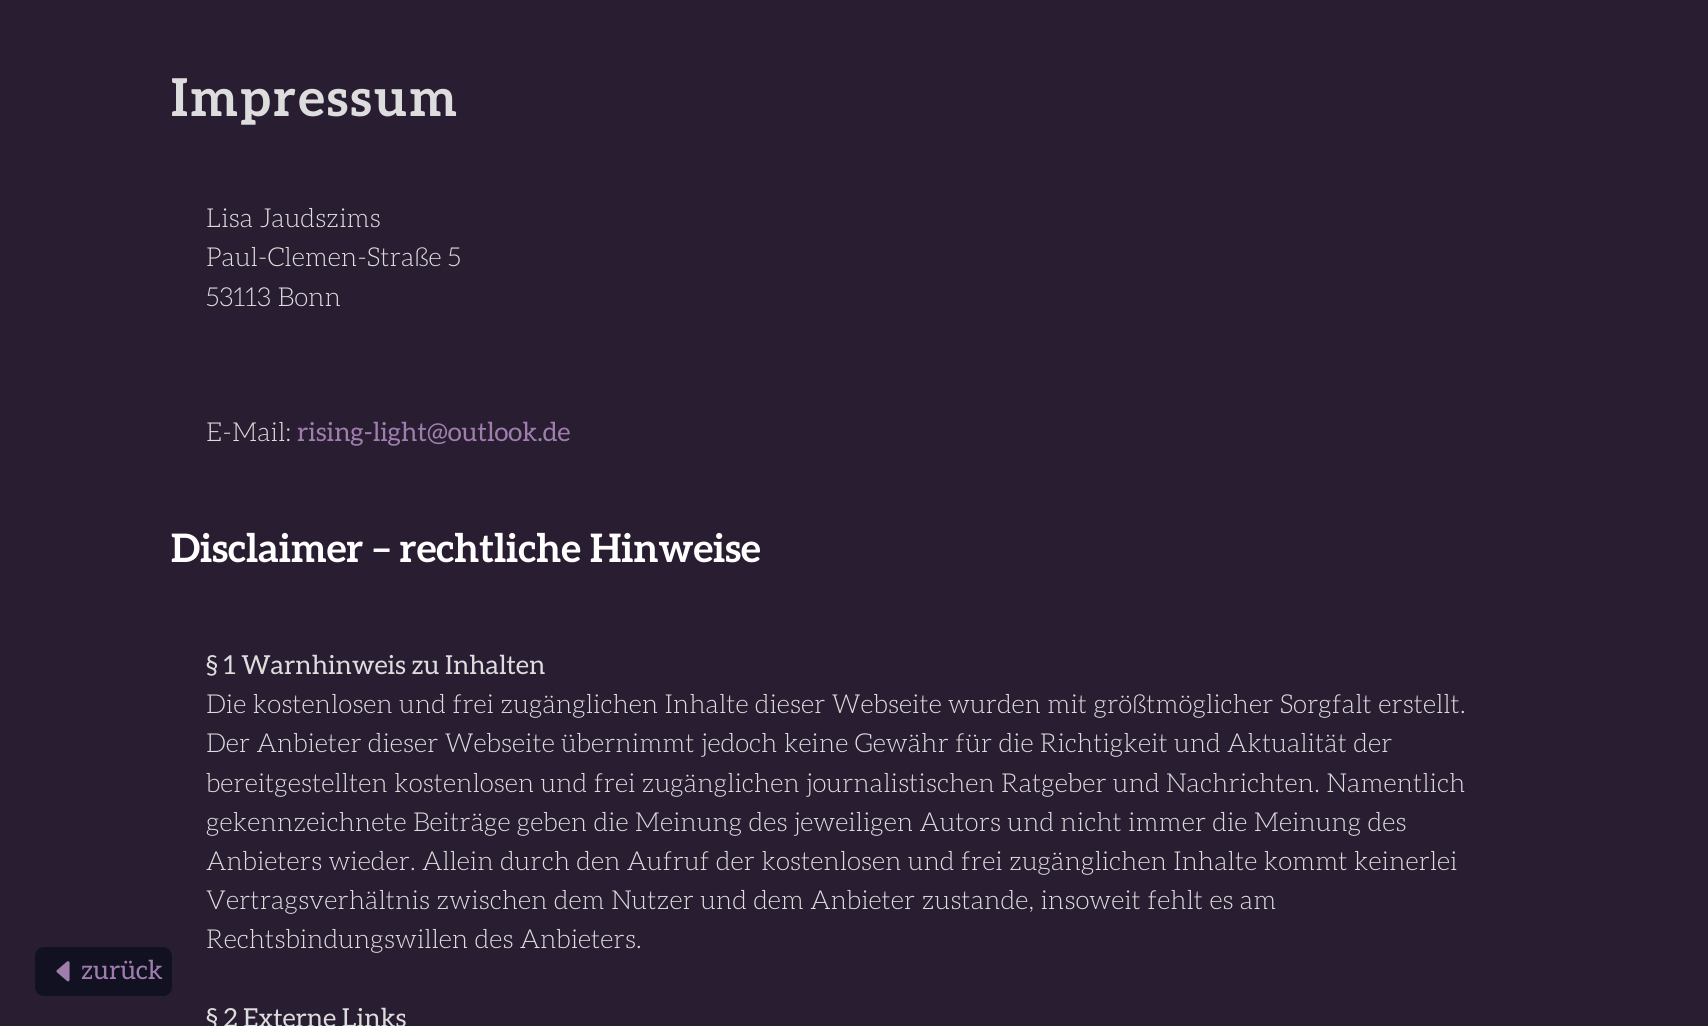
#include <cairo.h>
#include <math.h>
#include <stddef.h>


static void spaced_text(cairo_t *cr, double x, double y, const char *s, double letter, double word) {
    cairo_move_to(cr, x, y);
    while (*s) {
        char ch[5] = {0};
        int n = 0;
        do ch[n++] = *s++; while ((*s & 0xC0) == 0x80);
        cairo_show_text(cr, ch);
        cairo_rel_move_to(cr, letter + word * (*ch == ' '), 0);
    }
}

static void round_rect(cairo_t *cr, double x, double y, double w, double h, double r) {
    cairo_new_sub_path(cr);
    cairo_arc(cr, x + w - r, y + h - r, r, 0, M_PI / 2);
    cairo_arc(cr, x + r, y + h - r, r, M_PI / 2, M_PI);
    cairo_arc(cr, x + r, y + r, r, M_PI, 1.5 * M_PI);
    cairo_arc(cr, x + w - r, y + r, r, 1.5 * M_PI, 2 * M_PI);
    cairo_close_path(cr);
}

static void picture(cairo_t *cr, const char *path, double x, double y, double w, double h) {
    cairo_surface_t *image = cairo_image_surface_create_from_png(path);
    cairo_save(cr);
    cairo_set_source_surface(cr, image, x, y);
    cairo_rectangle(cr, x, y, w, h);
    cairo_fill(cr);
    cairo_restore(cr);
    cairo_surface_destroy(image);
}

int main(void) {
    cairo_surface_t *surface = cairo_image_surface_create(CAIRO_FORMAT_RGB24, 1708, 1026);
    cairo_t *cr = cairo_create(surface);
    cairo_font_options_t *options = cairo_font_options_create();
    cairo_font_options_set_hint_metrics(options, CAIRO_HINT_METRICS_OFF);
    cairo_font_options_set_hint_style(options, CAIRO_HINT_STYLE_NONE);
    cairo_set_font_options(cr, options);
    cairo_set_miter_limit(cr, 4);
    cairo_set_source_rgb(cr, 0.161, 0.114, 0.196);
    cairo_paint(cr);
    cairo_select_font_face(cr, "Aleo", CAIRO_FONT_SLANT_NORMAL, CAIRO_FONT_WEIGHT_BOLD);
    cairo_set_font_size(cr, 52.25);
    cairo_set_source_rgb(cr, 0.867, 0.867, 0.867);
    spaced_text(cr, 171, 116, "Impressum", 2.5, 0);
    cairo_select_font_face(cr, "Aleo Light", CAIRO_FONT_SLANT_NORMAL, CAIRO_FONT_WEIGHT_NORMAL);
    cairo_set_font_size(cr, 26.15);
    cairo_move_to(cr, 206, 227);
    cairo_show_text(cr, "Lisa Jaudszims");
    cairo_move_to(cr, 206, 266);
    cairo_show_text(cr, "Paul-Clemen-Straße 5");
    cairo_move_to(cr, 206, 306);
    cairo_show_text(cr, "53113 Bonn");
    cairo_move_to(cr, 206, 441);
    cairo_show_text(cr, "E-Mail:");
    cairo_select_font_face(cr, "Aleo", CAIRO_FONT_SLANT_NORMAL, CAIRO_FONT_WEIGHT_NORMAL);
    cairo_set_source_rgb(cr, 0.624, 0.494, 0.678);
    cairo_move_to(cr, 297, 441);
    cairo_show_text(cr, "rising-light@outlook.de");
    cairo_select_font_face(cr, "Aleo", CAIRO_FONT_SLANT_NORMAL, CAIRO_FONT_WEIGHT_BOLD);
    cairo_set_font_size(cr, 39.25);
    cairo_set_source_rgb(cr, 1, 1, 1);
    cairo_move_to(cr, 171, 562);
    cairo_show_text(cr, "Disclaimer – rechtliche Hinweise");
    cairo_set_source_rgb(cr, 0.067, 0.067, 0.133);
    round_rect(cr, 35, 947, 137, 49, 9);
    cairo_fill(cr);
    picture(cr, "img1.png", 56, 961, 14, 21);
    cairo_select_font_face(cr, "Aleo", CAIRO_FONT_SLANT_NORMAL, CAIRO_FONT_WEIGHT_NORMAL);
    cairo_set_font_size(cr, 26.15);
    cairo_set_source_rgb(cr, 0.624, 0.494, 0.678);
    cairo_move_to(cr, 81, 979);
    cairo_show_text(cr, "zurück");
    cairo_set_source_rgb(cr, 0.867, 0.867, 0.867);
    cairo_move_to(cr, 206, 674);
    cairo_show_text(cr, "§ 1 Warnhinweis zu Inhalten");
    cairo_select_font_face(cr, "Aleo Light", CAIRO_FONT_SLANT_NORMAL, CAIRO_FONT_WEIGHT_NORMAL);
    cairo_move_to(cr, 206, 713);
    cairo_show_text(cr, "Die kostenlosen und frei zugänglichen Inhalte dieser Webseite wurden mit größtmöglicher Sorgfalt erstellt.");
    cairo_move_to(cr, 206, 752);
    cairo_show_text(cr, "Der Anbieter dieser Webseite übernimmt jedoch keine Gewähr für die Richtigkeit und Aktualität der");
    cairo_move_to(cr, 206, 792);
    cairo_show_text(cr, "bereitgestellten kostenlosen und frei zugänglichen journalistischen Ratgeber und Nachrichten. Namentlich");
    cairo_move_to(cr, 206, 831);
    cairo_show_text(cr, "gekennzeichnete Beiträge geben die Meinung des jeweiligen Autors und nicht immer die Meinung des");
    cairo_move_to(cr, 206, 870);
    cairo_show_text(cr, "Anbieters wieder. Allein durch den Aufruf der kostenlosen und frei zugänglichen Inhalte kommt keinerlei");
    cairo_move_to(cr, 206, 909);
    cairo_show_text(cr, "Vertragsverhältnis zwischen dem Nutzer und dem Anbieter zustande, insoweit fehlt es am");
    cairo_move_to(cr, 206, 948);
    cairo_show_text(cr, "Rechtsbindungswillen des Anbieters.");
    cairo_select_font_face(cr, "Aleo", CAIRO_FONT_SLANT_NORMAL, CAIRO_FONT_WEIGHT_NORMAL);
    cairo_move_to(cr, 206, 1027);
    cairo_show_text(cr, "§ 2 Externe Links");
    cairo_surface_write_to_png(surface, "page.png");
    cairo_font_options_destroy(options);
    cairo_destroy(cr);
    cairo_surface_destroy(surface);
    return 0;
}
